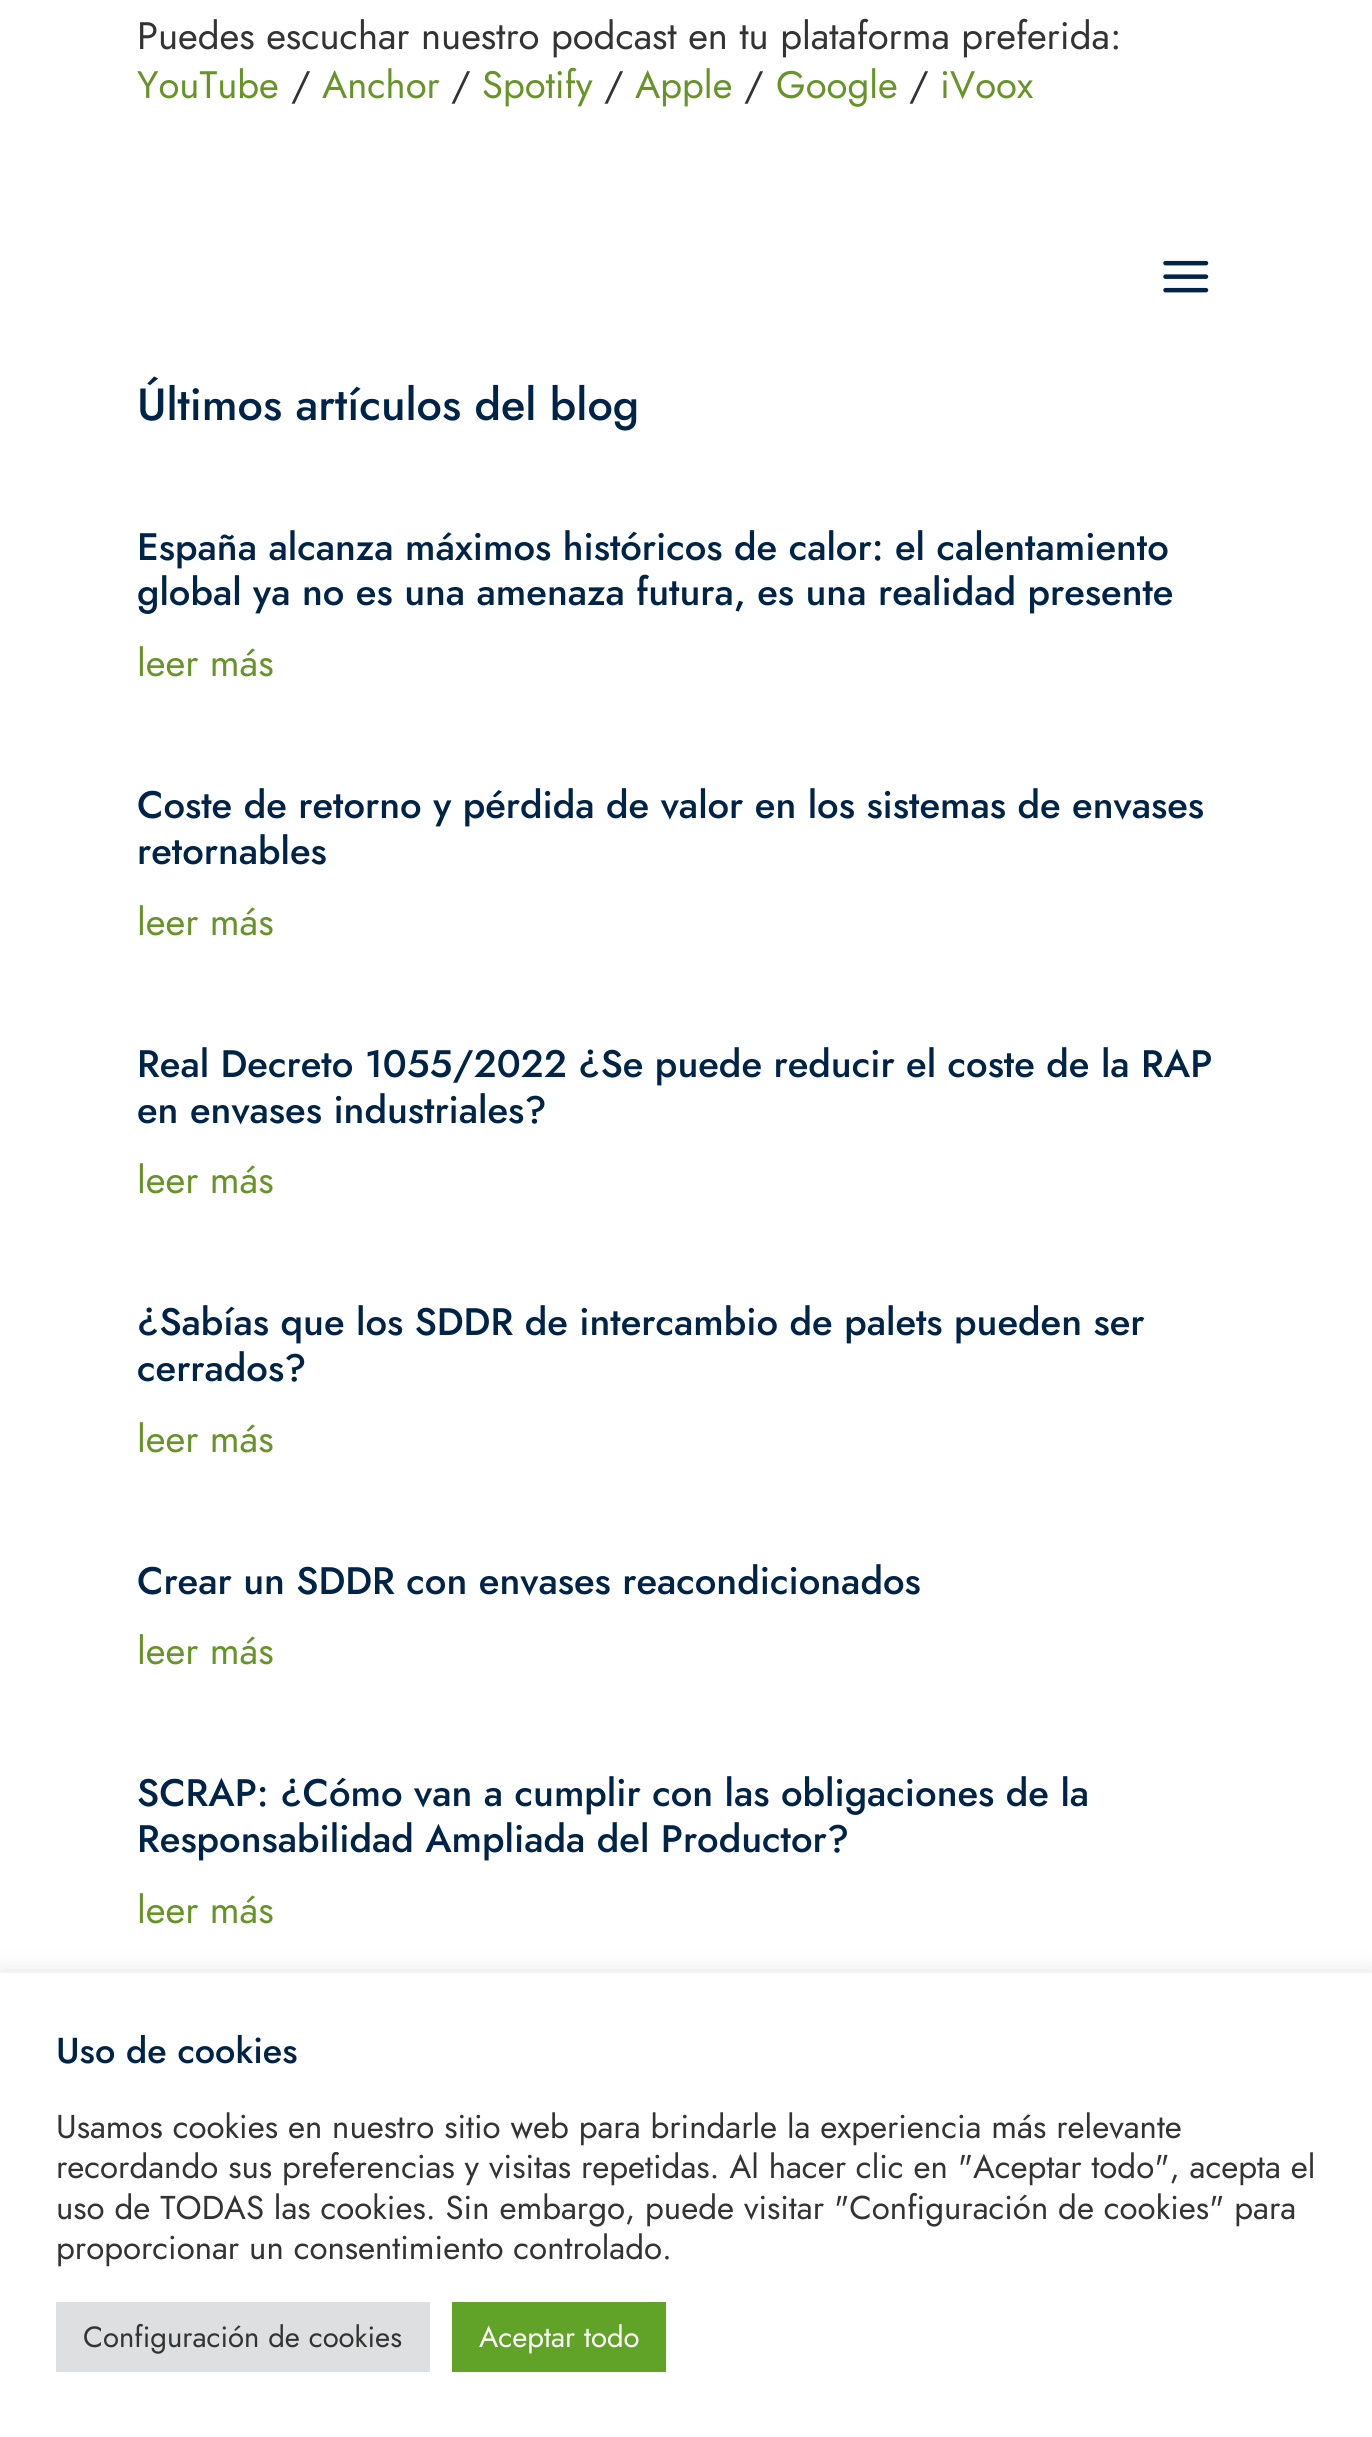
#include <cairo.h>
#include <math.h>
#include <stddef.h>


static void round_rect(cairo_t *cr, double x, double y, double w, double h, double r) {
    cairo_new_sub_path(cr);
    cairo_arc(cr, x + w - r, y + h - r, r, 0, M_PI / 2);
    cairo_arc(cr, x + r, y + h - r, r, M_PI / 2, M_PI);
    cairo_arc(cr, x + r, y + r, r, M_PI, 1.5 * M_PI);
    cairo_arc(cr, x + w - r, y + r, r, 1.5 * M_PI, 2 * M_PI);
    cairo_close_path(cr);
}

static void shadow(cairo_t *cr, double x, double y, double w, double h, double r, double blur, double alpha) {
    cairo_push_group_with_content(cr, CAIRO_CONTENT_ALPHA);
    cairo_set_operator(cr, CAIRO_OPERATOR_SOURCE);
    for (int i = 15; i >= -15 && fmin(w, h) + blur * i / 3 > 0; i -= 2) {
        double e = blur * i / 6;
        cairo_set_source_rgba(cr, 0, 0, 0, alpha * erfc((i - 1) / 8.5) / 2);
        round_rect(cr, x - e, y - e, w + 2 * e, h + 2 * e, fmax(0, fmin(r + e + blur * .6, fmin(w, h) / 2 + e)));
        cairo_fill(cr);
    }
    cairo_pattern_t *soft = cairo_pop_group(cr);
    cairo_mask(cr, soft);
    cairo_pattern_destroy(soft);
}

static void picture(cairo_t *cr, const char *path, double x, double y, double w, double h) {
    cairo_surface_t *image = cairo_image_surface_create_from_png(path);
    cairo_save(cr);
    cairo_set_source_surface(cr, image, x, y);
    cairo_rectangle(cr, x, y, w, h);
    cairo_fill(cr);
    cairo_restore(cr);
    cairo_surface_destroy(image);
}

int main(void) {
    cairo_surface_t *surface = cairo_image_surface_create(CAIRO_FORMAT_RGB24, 1372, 2437);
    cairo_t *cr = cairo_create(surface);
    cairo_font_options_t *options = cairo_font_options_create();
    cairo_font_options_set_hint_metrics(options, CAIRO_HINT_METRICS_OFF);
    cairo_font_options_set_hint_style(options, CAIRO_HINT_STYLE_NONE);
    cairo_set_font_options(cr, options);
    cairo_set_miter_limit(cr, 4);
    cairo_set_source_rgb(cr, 1, 1, 1);
    cairo_paint(cr);
    cairo_select_font_face(cr, "Jost", CAIRO_FONT_SLANT_NORMAL, CAIRO_FONT_WEIGHT_NORMAL);
    cairo_set_font_size(cr, 38.25);
    cairo_set_source_rgb(cr, 0.2, 0.2, 0.2);
    cairo_move_to(cr, 137, 49);
    cairo_show_text(cr, "Puedes escuchar nuestro podcast en tu plataforma preferida:");
    cairo_set_source_rgb(cr, 0.4, 0.58, 0.149);
    cairo_move_to(cr, 137, 98);
    cairo_show_text(cr, "YouTube");
    cairo_set_source_rgb(cr, 0.2, 0.2, 0.2);
    cairo_move_to(cr, 291, 98);
    cairo_show_text(cr, "/");
    cairo_set_source_rgb(cr, 0.4, 0.58, 0.149);
    cairo_move_to(cr, 322, 98);
    cairo_show_text(cr, "Anchor");
    cairo_set_source_rgb(cr, 0.2, 0.2, 0.2);
    cairo_move_to(cr, 451, 98);
    cairo_show_text(cr, "/");
    cairo_set_source_rgb(cr, 0.4, 0.58, 0.149);
    cairo_move_to(cr, 482, 98);
    cairo_show_text(cr, "Spotify");
    cairo_set_source_rgb(cr, 0.2, 0.2, 0.2);
    cairo_move_to(cr, 604, 98);
    cairo_show_text(cr, "/");
    cairo_set_source_rgb(cr, 0.4, 0.58, 0.149);
    cairo_move_to(cr, 635, 98);
    cairo_show_text(cr, "Apple");
    cairo_set_source_rgb(cr, 0.2, 0.2, 0.2);
    cairo_move_to(cr, 744, 98);
    cairo_show_text(cr, "/");
    cairo_set_source_rgb(cr, 0.4, 0.58, 0.149);
    cairo_move_to(cr, 776, 98);
    cairo_show_text(cr, "Google");
    cairo_set_source_rgb(cr, 0.2, 0.2, 0.2);
    cairo_move_to(cr, 909, 98);
    cairo_show_text(cr, "/");
    cairo_set_source_rgb(cr, 0.4, 0.58, 0.149);
    cairo_move_to(cr, 940, 98);
    cairo_show_text(cr, "iVoox");
    picture(cr, "img1.png", 1163, 260, 46, 33);
    cairo_select_font_face(cr, "Jost Medium", CAIRO_FONT_SLANT_NORMAL, CAIRO_FONT_WEIGHT_NORMAL);
    cairo_set_font_size(cr, 45);
    cairo_set_source_rgb(cr, 0, 0.141, 0.282);
    cairo_move_to(cr, 137, 420);
    cairo_show_text(cr, "Últimos artículos del blog");
    cairo_set_font_size(cr, 38.25);
    cairo_move_to(cr, 137, 560);
    cairo_show_text(cr, "España alcanza máximos históricos de calor: el calentamiento");
    cairo_move_to(cr, 137, 605);
    cairo_show_text(cr, "global ya no es una amenaza futura, es una realidad presente");
    cairo_select_font_face(cr, "Jost", CAIRO_FONT_SLANT_NORMAL, CAIRO_FONT_WEIGHT_NORMAL);
    cairo_set_source_rgb(cr, 0.4, 0.58, 0.149);
    cairo_move_to(cr, 137, 676);
    cairo_show_text(cr, "leer más");
    cairo_select_font_face(cr, "Jost Medium", CAIRO_FONT_SLANT_NORMAL, CAIRO_FONT_WEIGHT_NORMAL);
    cairo_set_source_rgb(cr, 0, 0.141, 0.282);
    cairo_move_to(cr, 137, 818);
    cairo_show_text(cr, "Coste de retorno y pérdida de valor en los sistemas de envases");
    cairo_move_to(cr, 137, 864);
    cairo_show_text(cr, "retornables");
    cairo_select_font_face(cr, "Jost", CAIRO_FONT_SLANT_NORMAL, CAIRO_FONT_WEIGHT_NORMAL);
    cairo_set_source_rgb(cr, 0.4, 0.58, 0.149);
    cairo_move_to(cr, 137, 935);
    cairo_show_text(cr, "leer más");
    cairo_select_font_face(cr, "Jost Medium", CAIRO_FONT_SLANT_NORMAL, CAIRO_FONT_WEIGHT_NORMAL);
    cairo_set_source_rgb(cr, 0, 0.141, 0.282);
    cairo_move_to(cr, 137, 1077);
    cairo_show_text(cr, "Real Decreto 1055/2022 ¿Se puede reducir el coste de la RAP");
    cairo_move_to(cr, 137, 1123);
    cairo_show_text(cr, "en envases industriales?");
    cairo_select_font_face(cr, "Jost", CAIRO_FONT_SLANT_NORMAL, CAIRO_FONT_WEIGHT_NORMAL);
    cairo_set_source_rgb(cr, 0.4, 0.58, 0.149);
    cairo_move_to(cr, 137, 1193);
    cairo_show_text(cr, "leer más");
    cairo_select_font_face(cr, "Jost Medium", CAIRO_FONT_SLANT_NORMAL, CAIRO_FONT_WEIGHT_NORMAL);
    cairo_set_source_rgb(cr, 0, 0.141, 0.282);
    cairo_move_to(cr, 137, 1335);
    cairo_show_text(cr, "¿Sabías que los SDDR de intercambio de palets pueden ser");
    cairo_move_to(cr, 137, 1381);
    cairo_show_text(cr, "cerrados?");
    cairo_select_font_face(cr, "Jost", CAIRO_FONT_SLANT_NORMAL, CAIRO_FONT_WEIGHT_NORMAL);
    cairo_set_source_rgb(cr, 0.4, 0.58, 0.149);
    cairo_move_to(cr, 137, 1452);
    cairo_show_text(cr, "leer más");
    cairo_select_font_face(cr, "Jost Medium", CAIRO_FONT_SLANT_NORMAL, CAIRO_FONT_WEIGHT_NORMAL);
    cairo_set_source_rgb(cr, 0, 0.141, 0.282);
    cairo_move_to(cr, 137, 1594);
    cairo_show_text(cr, "Crear un SDDR con envases reacondicionados");
    cairo_select_font_face(cr, "Jost", CAIRO_FONT_SLANT_NORMAL, CAIRO_FONT_WEIGHT_NORMAL);
    cairo_set_source_rgb(cr, 0.4, 0.58, 0.149);
    cairo_move_to(cr, 137, 1664);
    cairo_show_text(cr, "leer más");
    cairo_select_font_face(cr, "Jost Medium", CAIRO_FONT_SLANT_NORMAL, CAIRO_FONT_WEIGHT_NORMAL);
    cairo_set_source_rgb(cr, 0, 0.141, 0.282);
    cairo_move_to(cr, 137, 1806);
    cairo_show_text(cr, "SCRAP: ¿Cómo van a cumplir con las obligaciones de la");
    cairo_move_to(cr, 137, 1852);
    cairo_show_text(cr, "Responsabilidad Ampliada del Productor?");
    cairo_select_font_face(cr, "Jost", CAIRO_FONT_SLANT_NORMAL, CAIRO_FONT_WEIGHT_NORMAL);
    cairo_set_source_rgb(cr, 0.4, 0.58, 0.149);
    cairo_move_to(cr, 137, 1923);
    cairo_show_text(cr, "leer más");
    cairo_set_source_rgb(cr, 0.675, 0.671, 0.671);
    shadow(cr, 0, 1971, 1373, 466, 0, 11, 0.3);
    cairo_set_source_rgb(cr, 1, 1, 1);
    cairo_rectangle(cr, 0, 1973, 1372, 464);
    cairo_fill(cr);
    cairo_select_font_face(cr, "Jost Medium", CAIRO_FONT_SLANT_NORMAL, CAIRO_FONT_WEIGHT_NORMAL);
    cairo_set_font_size(cr, 36);
    cairo_set_source_rgb(cr, 0, 0.141, 0.282);
    cairo_move_to(cr, 56, 2063);
    cairo_show_text(cr, "Uso de cookies");
    cairo_select_font_face(cr, "Jost", CAIRO_FONT_SLANT_NORMAL, CAIRO_FONT_WEIGHT_NORMAL);
    cairo_set_font_size(cr, 33);
    cairo_set_source_rgb(cr, 0.2, 0.2, 0.2);
    cairo_move_to(cr, 56, 2138);
    cairo_show_text(cr, "Usamos cookies en nuestro sitio web para brindarle la experiencia más relevante");
    cairo_move_to(cr, 56, 2178);
    cairo_show_text(cr, "recordando sus preferencias y visitas repetidas. Al hacer clic en \"Aceptar todo\", acepta el");
    cairo_move_to(cr, 56, 2219);
    cairo_show_text(cr, "uso de TODAS las cookies. Sin embargo, puede visitar \"Configuración de cookies\" para");
    cairo_move_to(cr, 56, 2259);
    cairo_show_text(cr, "proporcionar un consentimiento controlado.");
    cairo_set_source_rgb(cr, 0.871, 0.875, 0.878);
    cairo_rectangle(cr, 56, 2302, 374, 70);
    cairo_fill(cr);
    cairo_set_font_size(cr, 29.25);
    cairo_set_source_rgb(cr, 0.2, 0.2, 0.2);
    cairo_move_to(cr, 83, 2347);
    cairo_show_text(cr, "Configuración de cookies");
    cairo_set_source_rgb(cr, 0.38, 0.635, 0.161);
    cairo_rectangle(cr, 452, 2302, 214, 70);
    cairo_fill(cr);
    cairo_set_source_rgb(cr, 1, 1, 1);
    cairo_move_to(cr, 479, 2347);
    cairo_show_text(cr, "Aceptar todo");
    cairo_surface_write_to_png(surface, "page.png");
    cairo_font_options_destroy(options);
    cairo_destroy(cr);
    cairo_surface_destroy(surface);
    return 0;
}
